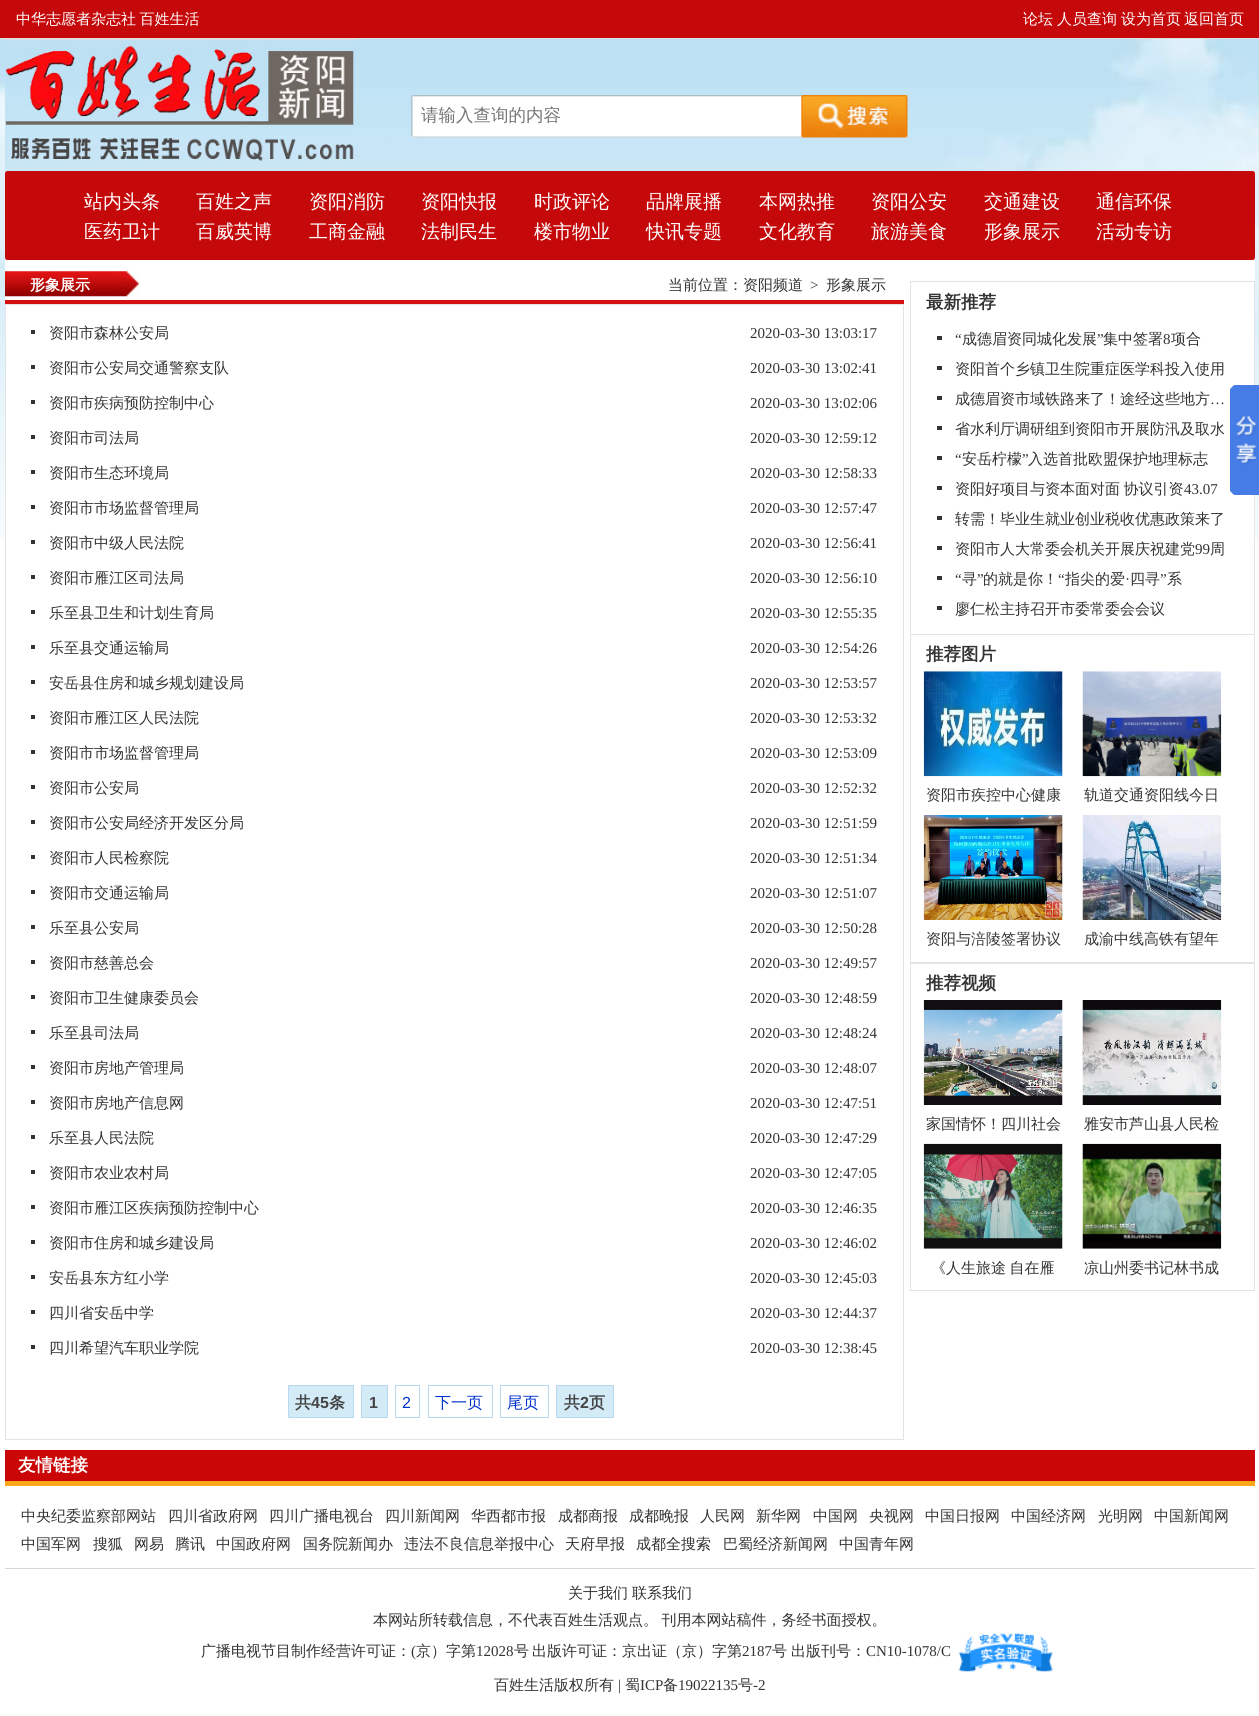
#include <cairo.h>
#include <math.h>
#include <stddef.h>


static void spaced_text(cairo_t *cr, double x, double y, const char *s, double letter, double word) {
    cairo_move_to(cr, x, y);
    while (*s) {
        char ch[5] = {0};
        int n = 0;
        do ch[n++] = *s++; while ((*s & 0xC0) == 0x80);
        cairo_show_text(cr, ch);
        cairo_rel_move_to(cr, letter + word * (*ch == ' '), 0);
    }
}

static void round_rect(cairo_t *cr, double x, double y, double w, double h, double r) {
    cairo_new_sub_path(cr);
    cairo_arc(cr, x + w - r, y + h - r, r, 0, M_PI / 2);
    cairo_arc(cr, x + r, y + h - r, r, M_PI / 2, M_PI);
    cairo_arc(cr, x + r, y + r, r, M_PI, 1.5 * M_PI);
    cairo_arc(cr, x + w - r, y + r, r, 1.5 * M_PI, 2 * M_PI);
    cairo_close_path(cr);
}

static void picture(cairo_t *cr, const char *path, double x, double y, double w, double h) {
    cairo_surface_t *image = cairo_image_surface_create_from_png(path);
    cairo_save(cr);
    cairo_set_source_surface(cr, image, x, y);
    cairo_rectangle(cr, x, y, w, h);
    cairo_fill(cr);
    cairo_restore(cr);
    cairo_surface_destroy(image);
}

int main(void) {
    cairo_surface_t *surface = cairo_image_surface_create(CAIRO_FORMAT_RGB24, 1259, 1716);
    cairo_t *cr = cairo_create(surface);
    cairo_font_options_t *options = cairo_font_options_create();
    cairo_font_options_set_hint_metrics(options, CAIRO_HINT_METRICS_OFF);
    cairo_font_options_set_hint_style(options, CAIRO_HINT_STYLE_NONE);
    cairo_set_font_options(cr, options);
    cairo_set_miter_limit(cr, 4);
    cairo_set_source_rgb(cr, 1, 1, 1);
    cairo_paint(cr);
    picture(cr, "img1.png", 0, 39, 1259, 500);
    cairo_set_source_rgb(cr, 0.773, 0.035, 0.039);
    cairo_rectangle(cr, 0, 0, 1259, 38);
    cairo_fill(cr);
    cairo_set_source_rgb(cr, 0.875, 0.875, 0.875);
    cairo_rectangle(cr, 0, 38, 1259, 1);
    cairo_fill(cr);
    cairo_select_font_face(cr, "WenQuanYi Zen Hei Medium", CAIRO_FONT_SLANT_NORMAL, CAIRO_FONT_WEIGHT_NORMAL);
    cairo_set_font_size(cr, 15);
    cairo_set_source_rgb(cr, 1, 1, 1);
    spaced_text(cr, 16, 24, "中华志愿者杂志社 百姓生活", 0, -1);
    cairo_move_to(cr, 1023, 24);
    cairo_show_text(cr, "论坛");
    cairo_move_to(cr, 1057, 24);
    cairo_show_text(cr, "人员查询");
    cairo_move_to(cr, 1121, 24);
    cairo_show_text(cr, "设为首页");
    cairo_move_to(cr, 1184, 24);
    cairo_show_text(cr, "返回首页");
    picture(cr, "img2.png", 5, 39, 350, 133);
    picture(cr, "img3.png", 411, 95, 497, 43);
    cairo_set_font_size(cr, 17.5);
    cairo_set_source_rgb(cr, 0.459, 0.459, 0.459);
    cairo_move_to(cr, 421, 121);
    cairo_show_text(cr, "请输入查询的内容");
    cairo_set_source_rgb(cr, 0.773, 0.035, 0.039);
    round_rect(cr, 5, 171, 1250, 89, 2.5);
    cairo_fill(cr);
    cairo_set_font_size(cr, 19);
    cairo_set_source_rgb(cr, 1, 1, 1);
    cairo_move_to(cr, 84, 208);
    cairo_show_text(cr, "站内头条");
    cairo_move_to(cr, 196, 208);
    cairo_show_text(cr, "百姓之声");
    cairo_move_to(cr, 309, 208);
    cairo_show_text(cr, "资阳消防");
    cairo_move_to(cr, 421, 208);
    cairo_show_text(cr, "资阳快报");
    cairo_move_to(cr, 534, 208);
    cairo_show_text(cr, "时政评论");
    cairo_move_to(cr, 646, 208);
    cairo_show_text(cr, "品牌展播");
    cairo_move_to(cr, 759, 208);
    cairo_show_text(cr, "本网热推");
    cairo_move_to(cr, 871, 208);
    cairo_show_text(cr, "资阳公安");
    cairo_move_to(cr, 984, 208);
    cairo_show_text(cr, "交通建设");
    cairo_move_to(cr, 1096, 208);
    cairo_show_text(cr, "通信环保");
    cairo_move_to(cr, 84, 238);
    cairo_show_text(cr, "医药卫计");
    cairo_move_to(cr, 196, 238);
    cairo_show_text(cr, "百威英博");
    cairo_move_to(cr, 309, 238);
    cairo_show_text(cr, "工商金融");
    cairo_move_to(cr, 421, 238);
    cairo_show_text(cr, "法制民生");
    cairo_move_to(cr, 534, 238);
    cairo_show_text(cr, "楼市物业");
    cairo_move_to(cr, 646, 238);
    cairo_show_text(cr, "快讯专题");
    cairo_move_to(cr, 759, 238);
    cairo_show_text(cr, "文化教育");
    cairo_move_to(cr, 871, 238);
    cairo_show_text(cr, "旅游美食");
    cairo_move_to(cr, 984, 238);
    cairo_show_text(cr, "形象展示");
    cairo_move_to(cr, 1096, 238);
    cairo_show_text(cr, "活动专访");
    cairo_rectangle(cr, 5, 260, 1250, 279);
    cairo_fill(cr);
    cairo_set_source_rgb(cr, 0.831, 0.063, 0.067);
    cairo_rectangle(cr, 5, 300, 899, 4);
    cairo_fill(cr);
    picture(cr, "img4.png", 5, 271, 134, 26);
    cairo_select_font_face(cr, "WenQuanYi Zen Hei", CAIRO_FONT_SLANT_NORMAL, CAIRO_FONT_WEIGHT_BOLD);
    cairo_set_font_size(cr, 15);
    cairo_set_source_rgb(cr, 1, 1, 1);
    cairo_move_to(cr, 30, 290);
    cairo_show_text(cr, "形象展示");
    cairo_select_font_face(cr, "WenQuanYi Zen Hei Medium", CAIRO_FONT_SLANT_NORMAL, CAIRO_FONT_WEIGHT_NORMAL);
    cairo_set_source_rgb(cr, 0.2, 0.2, 0.2);
    cairo_move_to(cr, 668, 290);
    cairo_show_text(cr, "当前位置：资阳频道");
    cairo_select_font_face(cr, "Liberation Serif", CAIRO_FONT_SLANT_NORMAL, CAIRO_FONT_WEIGHT_NORMAL);
    cairo_move_to(cr, 810, 290);
    cairo_show_text(cr, ">");
    cairo_select_font_face(cr, "WenQuanYi Zen Hei Medium", CAIRO_FONT_SLANT_NORMAL, CAIRO_FONT_WEIGHT_NORMAL);
    cairo_move_to(cr, 826, 290);
    cairo_show_text(cr, "形象展示");
    cairo_rectangle(cr, 5.5, 304.5, 898, 1135);
    cairo_set_source_rgb(cr, 0.89, 0.89, 0.89);
    cairo_set_line_width(cr, 1);
    cairo_stroke(cr);
    cairo_set_source_rgb(cr, 0.2, 0.2, 0.2);
    cairo_rectangle(cr, 31, 330, 4, 4);
    cairo_fill(cr);
    cairo_move_to(cr, 49, 338);
    cairo_show_text(cr, "资阳市森林公安局");
    cairo_select_font_face(cr, "Liberation Serif", CAIRO_FONT_SLANT_NORMAL, CAIRO_FONT_WEIGHT_NORMAL);
    cairo_move_to(cr, 750, 338);
    cairo_show_text(cr, "2020-03-30 13:03:17");
    cairo_rectangle(cr, 31, 365, 4, 4);
    cairo_fill(cr);
    cairo_select_font_face(cr, "WenQuanYi Zen Hei Medium", CAIRO_FONT_SLANT_NORMAL, CAIRO_FONT_WEIGHT_NORMAL);
    cairo_move_to(cr, 49, 373);
    cairo_show_text(cr, "资阳市公安局交通警察支队");
    cairo_select_font_face(cr, "Liberation Serif", CAIRO_FONT_SLANT_NORMAL, CAIRO_FONT_WEIGHT_NORMAL);
    cairo_move_to(cr, 750, 373);
    cairo_show_text(cr, "2020-03-30 13:02:41");
    cairo_rectangle(cr, 31, 400, 4, 4);
    cairo_fill(cr);
    cairo_select_font_face(cr, "WenQuanYi Zen Hei Medium", CAIRO_FONT_SLANT_NORMAL, CAIRO_FONT_WEIGHT_NORMAL);
    cairo_move_to(cr, 49, 408);
    cairo_show_text(cr, "资阳市疾病预防控制中心");
    cairo_select_font_face(cr, "Liberation Serif", CAIRO_FONT_SLANT_NORMAL, CAIRO_FONT_WEIGHT_NORMAL);
    cairo_move_to(cr, 750, 408);
    cairo_show_text(cr, "2020-03-30 13:02:06");
    cairo_rectangle(cr, 31, 435, 4, 4);
    cairo_fill(cr);
    cairo_select_font_face(cr, "WenQuanYi Zen Hei Medium", CAIRO_FONT_SLANT_NORMAL, CAIRO_FONT_WEIGHT_NORMAL);
    cairo_move_to(cr, 49, 443);
    cairo_show_text(cr, "资阳市司法局");
    cairo_select_font_face(cr, "Liberation Serif", CAIRO_FONT_SLANT_NORMAL, CAIRO_FONT_WEIGHT_NORMAL);
    cairo_move_to(cr, 750, 443);
    cairo_show_text(cr, "2020-03-30 12:59:12");
    cairo_rectangle(cr, 31, 470, 4, 4);
    cairo_fill(cr);
    cairo_select_font_face(cr, "WenQuanYi Zen Hei Medium", CAIRO_FONT_SLANT_NORMAL, CAIRO_FONT_WEIGHT_NORMAL);
    cairo_move_to(cr, 49, 478);
    cairo_show_text(cr, "资阳市生态环境局");
    cairo_select_font_face(cr, "Liberation Serif", CAIRO_FONT_SLANT_NORMAL, CAIRO_FONT_WEIGHT_NORMAL);
    cairo_move_to(cr, 750, 478);
    cairo_show_text(cr, "2020-03-30 12:58:33");
    cairo_rectangle(cr, 31, 505, 4, 4);
    cairo_fill(cr);
    cairo_select_font_face(cr, "WenQuanYi Zen Hei Medium", CAIRO_FONT_SLANT_NORMAL, CAIRO_FONT_WEIGHT_NORMAL);
    cairo_move_to(cr, 49, 513);
    cairo_show_text(cr, "资阳市市场监督管理局");
    cairo_select_font_face(cr, "Liberation Serif", CAIRO_FONT_SLANT_NORMAL, CAIRO_FONT_WEIGHT_NORMAL);
    cairo_move_to(cr, 750, 513);
    cairo_show_text(cr, "2020-03-30 12:57:47");
    cairo_rectangle(cr, 31, 540, 4, 4);
    cairo_fill(cr);
    cairo_select_font_face(cr, "WenQuanYi Zen Hei Medium", CAIRO_FONT_SLANT_NORMAL, CAIRO_FONT_WEIGHT_NORMAL);
    cairo_move_to(cr, 49, 548);
    cairo_show_text(cr, "资阳市中级人民法院");
    cairo_select_font_face(cr, "Liberation Serif", CAIRO_FONT_SLANT_NORMAL, CAIRO_FONT_WEIGHT_NORMAL);
    cairo_move_to(cr, 750, 548);
    cairo_show_text(cr, "2020-03-30 12:56:41");
    cairo_rectangle(cr, 31, 575, 4, 4);
    cairo_fill(cr);
    cairo_select_font_face(cr, "WenQuanYi Zen Hei Medium", CAIRO_FONT_SLANT_NORMAL, CAIRO_FONT_WEIGHT_NORMAL);
    cairo_move_to(cr, 49, 583);
    cairo_show_text(cr, "资阳市雁江区司法局");
    cairo_select_font_face(cr, "Liberation Serif", CAIRO_FONT_SLANT_NORMAL, CAIRO_FONT_WEIGHT_NORMAL);
    cairo_move_to(cr, 750, 583);
    cairo_show_text(cr, "2020-03-30 12:56:10");
    cairo_rectangle(cr, 31, 610, 4, 4);
    cairo_fill(cr);
    cairo_select_font_face(cr, "WenQuanYi Zen Hei Medium", CAIRO_FONT_SLANT_NORMAL, CAIRO_FONT_WEIGHT_NORMAL);
    cairo_move_to(cr, 49, 618);
    cairo_show_text(cr, "乐至县卫生和计划生育局");
    cairo_select_font_face(cr, "Liberation Serif", CAIRO_FONT_SLANT_NORMAL, CAIRO_FONT_WEIGHT_NORMAL);
    cairo_move_to(cr, 750, 618);
    cairo_show_text(cr, "2020-03-30 12:55:35");
    cairo_rectangle(cr, 31, 645, 4, 4);
    cairo_fill(cr);
    cairo_select_font_face(cr, "WenQuanYi Zen Hei Medium", CAIRO_FONT_SLANT_NORMAL, CAIRO_FONT_WEIGHT_NORMAL);
    cairo_move_to(cr, 49, 653);
    cairo_show_text(cr, "乐至县交通运输局");
    cairo_select_font_face(cr, "Liberation Serif", CAIRO_FONT_SLANT_NORMAL, CAIRO_FONT_WEIGHT_NORMAL);
    cairo_move_to(cr, 750, 653);
    cairo_show_text(cr, "2020-03-30 12:54:26");
    cairo_rectangle(cr, 31, 680, 4, 4);
    cairo_fill(cr);
    cairo_select_font_face(cr, "WenQuanYi Zen Hei Medium", CAIRO_FONT_SLANT_NORMAL, CAIRO_FONT_WEIGHT_NORMAL);
    cairo_move_to(cr, 49, 688);
    cairo_show_text(cr, "安岳县住房和城乡规划建设局");
    cairo_select_font_face(cr, "Liberation Serif", CAIRO_FONT_SLANT_NORMAL, CAIRO_FONT_WEIGHT_NORMAL);
    cairo_move_to(cr, 750, 688);
    cairo_show_text(cr, "2020-03-30 12:53:57");
    cairo_rectangle(cr, 31, 715, 4, 4);
    cairo_fill(cr);
    cairo_select_font_face(cr, "WenQuanYi Zen Hei Medium", CAIRO_FONT_SLANT_NORMAL, CAIRO_FONT_WEIGHT_NORMAL);
    cairo_move_to(cr, 49, 723);
    cairo_show_text(cr, "资阳市雁江区人民法院");
    cairo_select_font_face(cr, "Liberation Serif", CAIRO_FONT_SLANT_NORMAL, CAIRO_FONT_WEIGHT_NORMAL);
    cairo_move_to(cr, 750, 723);
    cairo_show_text(cr, "2020-03-30 12:53:32");
    cairo_rectangle(cr, 31, 750, 4, 4);
    cairo_fill(cr);
    cairo_select_font_face(cr, "WenQuanYi Zen Hei Medium", CAIRO_FONT_SLANT_NORMAL, CAIRO_FONT_WEIGHT_NORMAL);
    cairo_move_to(cr, 49, 758);
    cairo_show_text(cr, "资阳市市场监督管理局");
    cairo_select_font_face(cr, "Liberation Serif", CAIRO_FONT_SLANT_NORMAL, CAIRO_FONT_WEIGHT_NORMAL);
    cairo_move_to(cr, 750, 758);
    cairo_show_text(cr, "2020-03-30 12:53:09");
    cairo_rectangle(cr, 31, 785, 4, 4);
    cairo_fill(cr);
    cairo_select_font_face(cr, "WenQuanYi Zen Hei Medium", CAIRO_FONT_SLANT_NORMAL, CAIRO_FONT_WEIGHT_NORMAL);
    cairo_move_to(cr, 49, 793);
    cairo_show_text(cr, "资阳市公安局");
    cairo_select_font_face(cr, "Liberation Serif", CAIRO_FONT_SLANT_NORMAL, CAIRO_FONT_WEIGHT_NORMAL);
    cairo_move_to(cr, 750, 793);
    cairo_show_text(cr, "2020-03-30 12:52:32");
    cairo_rectangle(cr, 31, 820, 4, 4);
    cairo_fill(cr);
    cairo_select_font_face(cr, "WenQuanYi Zen Hei Medium", CAIRO_FONT_SLANT_NORMAL, CAIRO_FONT_WEIGHT_NORMAL);
    cairo_move_to(cr, 49, 828);
    cairo_show_text(cr, "资阳市公安局经济开发区分局");
    cairo_select_font_face(cr, "Liberation Serif", CAIRO_FONT_SLANT_NORMAL, CAIRO_FONT_WEIGHT_NORMAL);
    cairo_move_to(cr, 750, 828);
    cairo_show_text(cr, "2020-03-30 12:51:59");
    cairo_rectangle(cr, 31, 855, 4, 4);
    cairo_fill(cr);
    cairo_select_font_face(cr, "WenQuanYi Zen Hei Medium", CAIRO_FONT_SLANT_NORMAL, CAIRO_FONT_WEIGHT_NORMAL);
    cairo_move_to(cr, 49, 863);
    cairo_show_text(cr, "资阳市人民检察院");
    cairo_select_font_face(cr, "Liberation Serif", CAIRO_FONT_SLANT_NORMAL, CAIRO_FONT_WEIGHT_NORMAL);
    cairo_move_to(cr, 750, 863);
    cairo_show_text(cr, "2020-03-30 12:51:34");
    cairo_rectangle(cr, 31, 890, 4, 4);
    cairo_fill(cr);
    cairo_select_font_face(cr, "WenQuanYi Zen Hei Medium", CAIRO_FONT_SLANT_NORMAL, CAIRO_FONT_WEIGHT_NORMAL);
    cairo_move_to(cr, 49, 898);
    cairo_show_text(cr, "资阳市交通运输局");
    cairo_select_font_face(cr, "Liberation Serif", CAIRO_FONT_SLANT_NORMAL, CAIRO_FONT_WEIGHT_NORMAL);
    cairo_move_to(cr, 750, 898);
    cairo_show_text(cr, "2020-03-30 12:51:07");
    cairo_rectangle(cr, 31, 925, 4, 4);
    cairo_fill(cr);
    cairo_select_font_face(cr, "WenQuanYi Zen Hei Medium", CAIRO_FONT_SLANT_NORMAL, CAIRO_FONT_WEIGHT_NORMAL);
    cairo_move_to(cr, 49, 933);
    cairo_show_text(cr, "乐至县公安局");
    cairo_select_font_face(cr, "Liberation Serif", CAIRO_FONT_SLANT_NORMAL, CAIRO_FONT_WEIGHT_NORMAL);
    cairo_move_to(cr, 750, 933);
    cairo_show_text(cr, "2020-03-30 12:50:28");
    cairo_rectangle(cr, 31, 960, 4, 4);
    cairo_fill(cr);
    cairo_select_font_face(cr, "WenQuanYi Zen Hei Medium", CAIRO_FONT_SLANT_NORMAL, CAIRO_FONT_WEIGHT_NORMAL);
    cairo_move_to(cr, 49, 968);
    cairo_show_text(cr, "资阳市慈善总会");
    cairo_select_font_face(cr, "Liberation Serif", CAIRO_FONT_SLANT_NORMAL, CAIRO_FONT_WEIGHT_NORMAL);
    cairo_move_to(cr, 750, 968);
    cairo_show_text(cr, "2020-03-30 12:49:57");
    cairo_rectangle(cr, 31, 995, 4, 4);
    cairo_fill(cr);
    cairo_select_font_face(cr, "WenQuanYi Zen Hei Medium", CAIRO_FONT_SLANT_NORMAL, CAIRO_FONT_WEIGHT_NORMAL);
    cairo_move_to(cr, 49, 1003);
    cairo_show_text(cr, "资阳市卫生健康委员会");
    cairo_select_font_face(cr, "Liberation Serif", CAIRO_FONT_SLANT_NORMAL, CAIRO_FONT_WEIGHT_NORMAL);
    cairo_move_to(cr, 750, 1003);
    cairo_show_text(cr, "2020-03-30 12:48:59");
    cairo_rectangle(cr, 31, 1030, 4, 4);
    cairo_fill(cr);
    cairo_select_font_face(cr, "WenQuanYi Zen Hei Medium", CAIRO_FONT_SLANT_NORMAL, CAIRO_FONT_WEIGHT_NORMAL);
    cairo_move_to(cr, 49, 1038);
    cairo_show_text(cr, "乐至县司法局");
    cairo_select_font_face(cr, "Liberation Serif", CAIRO_FONT_SLANT_NORMAL, CAIRO_FONT_WEIGHT_NORMAL);
    cairo_move_to(cr, 750, 1038);
    cairo_show_text(cr, "2020-03-30 12:48:24");
    cairo_rectangle(cr, 31, 1065, 4, 4);
    cairo_fill(cr);
    cairo_select_font_face(cr, "WenQuanYi Zen Hei Medium", CAIRO_FONT_SLANT_NORMAL, CAIRO_FONT_WEIGHT_NORMAL);
    cairo_move_to(cr, 49, 1073);
    cairo_show_text(cr, "资阳市房地产管理局");
    cairo_select_font_face(cr, "Liberation Serif", CAIRO_FONT_SLANT_NORMAL, CAIRO_FONT_WEIGHT_NORMAL);
    cairo_move_to(cr, 750, 1073);
    cairo_show_text(cr, "2020-03-30 12:48:07");
    cairo_rectangle(cr, 31, 1100, 4, 4);
    cairo_fill(cr);
    cairo_select_font_face(cr, "WenQuanYi Zen Hei Medium", CAIRO_FONT_SLANT_NORMAL, CAIRO_FONT_WEIGHT_NORMAL);
    cairo_move_to(cr, 49, 1108);
    cairo_show_text(cr, "资阳市房地产信息网");
    cairo_select_font_face(cr, "Liberation Serif", CAIRO_FONT_SLANT_NORMAL, CAIRO_FONT_WEIGHT_NORMAL);
    cairo_move_to(cr, 750, 1108);
    cairo_show_text(cr, "2020-03-30 12:47:51");
    cairo_rectangle(cr, 31, 1135, 4, 4);
    cairo_fill(cr);
    cairo_select_font_face(cr, "WenQuanYi Zen Hei Medium", CAIRO_FONT_SLANT_NORMAL, CAIRO_FONT_WEIGHT_NORMAL);
    cairo_move_to(cr, 49, 1143);
    cairo_show_text(cr, "乐至县人民法院");
    cairo_select_font_face(cr, "Liberation Serif", CAIRO_FONT_SLANT_NORMAL, CAIRO_FONT_WEIGHT_NORMAL);
    cairo_move_to(cr, 750, 1143);
    cairo_show_text(cr, "2020-03-30 12:47:29");
    cairo_rectangle(cr, 31, 1170, 4, 4);
    cairo_fill(cr);
    cairo_select_font_face(cr, "WenQuanYi Zen Hei Medium", CAIRO_FONT_SLANT_NORMAL, CAIRO_FONT_WEIGHT_NORMAL);
    cairo_move_to(cr, 49, 1178);
    cairo_show_text(cr, "资阳市农业农村局");
    cairo_select_font_face(cr, "Liberation Serif", CAIRO_FONT_SLANT_NORMAL, CAIRO_FONT_WEIGHT_NORMAL);
    cairo_move_to(cr, 750, 1178);
    cairo_show_text(cr, "2020-03-30 12:47:05");
    cairo_rectangle(cr, 31, 1205, 4, 4);
    cairo_fill(cr);
    cairo_select_font_face(cr, "WenQuanYi Zen Hei Medium", CAIRO_FONT_SLANT_NORMAL, CAIRO_FONT_WEIGHT_NORMAL);
    cairo_move_to(cr, 49, 1213);
    cairo_show_text(cr, "资阳市雁江区疾病预防控制中心");
    cairo_select_font_face(cr, "Liberation Serif", CAIRO_FONT_SLANT_NORMAL, CAIRO_FONT_WEIGHT_NORMAL);
    cairo_move_to(cr, 750, 1213);
    cairo_show_text(cr, "2020-03-30 12:46:35");
    cairo_rectangle(cr, 31, 1240, 4, 4);
    cairo_fill(cr);
    cairo_select_font_face(cr, "WenQuanYi Zen Hei Medium", CAIRO_FONT_SLANT_NORMAL, CAIRO_FONT_WEIGHT_NORMAL);
    cairo_move_to(cr, 49, 1248);
    cairo_show_text(cr, "资阳市住房和城乡建设局");
    cairo_select_font_face(cr, "Liberation Serif", CAIRO_FONT_SLANT_NORMAL, CAIRO_FONT_WEIGHT_NORMAL);
    cairo_move_to(cr, 750, 1248);
    cairo_show_text(cr, "2020-03-30 12:46:02");
    cairo_rectangle(cr, 31, 1275, 4, 4);
    cairo_fill(cr);
    cairo_select_font_face(cr, "WenQuanYi Zen Hei Medium", CAIRO_FONT_SLANT_NORMAL, CAIRO_FONT_WEIGHT_NORMAL);
    cairo_move_to(cr, 49, 1283);
    cairo_show_text(cr, "安岳县东方红小学");
    cairo_select_font_face(cr, "Liberation Serif", CAIRO_FONT_SLANT_NORMAL, CAIRO_FONT_WEIGHT_NORMAL);
    cairo_move_to(cr, 750, 1283);
    cairo_show_text(cr, "2020-03-30 12:45:03");
    cairo_rectangle(cr, 31, 1310, 4, 4);
    cairo_fill(cr);
    cairo_select_font_face(cr, "WenQuanYi Zen Hei Medium", CAIRO_FONT_SLANT_NORMAL, CAIRO_FONT_WEIGHT_NORMAL);
    cairo_move_to(cr, 49, 1318);
    cairo_show_text(cr, "四川省安岳中学");
    cairo_select_font_face(cr, "Liberation Serif", CAIRO_FONT_SLANT_NORMAL, CAIRO_FONT_WEIGHT_NORMAL);
    cairo_move_to(cr, 750, 1318);
    cairo_show_text(cr, "2020-03-30 12:44:37");
    cairo_rectangle(cr, 31, 1345, 4, 4);
    cairo_fill(cr);
    cairo_select_font_face(cr, "WenQuanYi Zen Hei Medium", CAIRO_FONT_SLANT_NORMAL, CAIRO_FONT_WEIGHT_NORMAL);
    cairo_move_to(cr, 49, 1353);
    cairo_show_text(cr, "四川希望汽车职业学院");
    cairo_select_font_face(cr, "Liberation Serif", CAIRO_FONT_SLANT_NORMAL, CAIRO_FONT_WEIGHT_NORMAL);
    cairo_move_to(cr, 750, 1353);
    cairo_show_text(cr, "2020-03-30 12:38:45");
    cairo_set_source_rgb(cr, 0.824, 0.918, 0.965);
    cairo_rectangle(cr, 288.5, 1385.5, 65, 32);
    cairo_fill_preserve(cr);
    cairo_set_source_rgb(cr, 0.718, 0.847, 0.933);
    cairo_stroke(cr);
    cairo_select_font_face(cr, "WenQuanYi Zen Hei", CAIRO_FONT_SLANT_NORMAL, CAIRO_FONT_WEIGHT_BOLD);
    cairo_set_font_size(cr, 16);
    cairo_set_source_rgb(cr, 0.267, 0.267, 0.267);
    cairo_move_to(cr, 295, 1408);
    cairo_show_text(cr, "共");
    cairo_select_font_face(cr, "Liberation Sans", CAIRO_FONT_SLANT_NORMAL, CAIRO_FONT_WEIGHT_BOLD);
    cairo_move_to(cr, 311, 1408);
    cairo_show_text(cr, "45");
    cairo_select_font_face(cr, "WenQuanYi Zen Hei", CAIRO_FONT_SLANT_NORMAL, CAIRO_FONT_WEIGHT_BOLD);
    cairo_move_to(cr, 329, 1408);
    cairo_show_text(cr, "条");
    cairo_set_source_rgb(cr, 0.824, 0.918, 0.965);
    cairo_rectangle(cr, 361.5, 1385.5, 26, 32);
    cairo_fill_preserve(cr);
    cairo_set_source_rgb(cr, 0.718, 0.847, 0.933);
    cairo_stroke(cr);
    cairo_select_font_face(cr, "Liberation Sans", CAIRO_FONT_SLANT_NORMAL, CAIRO_FONT_WEIGHT_BOLD);
    cairo_set_source_rgb(cr, 0.267, 0.267, 0.267);
    cairo_move_to(cr, 369, 1408);
    cairo_show_text(cr, "1");
    cairo_rectangle(cr, 395.5, 1385.5, 24, 32);
    cairo_set_source_rgb(cr, 0.718, 0.847, 0.933);
    cairo_stroke(cr);
    cairo_select_font_face(cr, "Liberation Sans", CAIRO_FONT_SLANT_NORMAL, CAIRO_FONT_WEIGHT_NORMAL);
    cairo_set_source_rgb(cr, 0, 0.188, 0.808);
    cairo_move_to(cr, 402, 1408);
    cairo_show_text(cr, "2");
    cairo_rectangle(cr, 428.5, 1385.5, 64, 32);
    cairo_set_source_rgb(cr, 0.718, 0.847, 0.933);
    cairo_stroke(cr);
    cairo_select_font_face(cr, "WenQuanYi Zen Hei Medium", CAIRO_FONT_SLANT_NORMAL, CAIRO_FONT_WEIGHT_NORMAL);
    cairo_set_source_rgb(cr, 0, 0.188, 0.808);
    cairo_move_to(cr, 435, 1408);
    cairo_show_text(cr, "下一页");
    cairo_rectangle(cr, 500.5, 1385.5, 48, 32);
    cairo_set_source_rgb(cr, 0.718, 0.847, 0.933);
    cairo_stroke(cr);
    cairo_set_source_rgb(cr, 0, 0.188, 0.808);
    cairo_move_to(cr, 507, 1408);
    cairo_show_text(cr, "尾页");
    cairo_set_source_rgb(cr, 0.824, 0.918, 0.965);
    cairo_rectangle(cr, 556.5, 1385.5, 57, 32);
    cairo_fill_preserve(cr);
    cairo_set_source_rgb(cr, 0.718, 0.847, 0.933);
    cairo_stroke(cr);
    cairo_select_font_face(cr, "WenQuanYi Zen Hei", CAIRO_FONT_SLANT_NORMAL, CAIRO_FONT_WEIGHT_BOLD);
    cairo_set_source_rgb(cr, 0.267, 0.267, 0.267);
    cairo_move_to(cr, 564, 1408);
    cairo_show_text(cr, "共");
    cairo_select_font_face(cr, "Liberation Sans", CAIRO_FONT_SLANT_NORMAL, CAIRO_FONT_WEIGHT_BOLD);
    cairo_move_to(cr, 580, 1408);
    cairo_show_text(cr, "2");
    cairo_select_font_face(cr, "WenQuanYi Zen Hei", CAIRO_FONT_SLANT_NORMAL, CAIRO_FONT_WEIGHT_BOLD);
    cairo_move_to(cr, 589, 1408);
    cairo_show_text(cr, "页");
    cairo_set_source_rgb(cr, 0.89, 0.89, 0.89);
    cairo_rectangle(cr, 910, 281, 345, 1);
    cairo_fill(cr);
    cairo_rectangle(cr, 1254, 281, 1, 353);
    cairo_fill(cr);
    cairo_rectangle(cr, 910, 281, 1, 353);
    cairo_fill(cr);
    cairo_set_font_size(cr, 17.5);
    cairo_set_source_rgb(cr, 0.2, 0.2, 0.2);
    cairo_move_to(cr, 926, 308);
    cairo_show_text(cr, "最新推荐");
    cairo_rectangle(cr, 937, 336, 5, 4);
    cairo_fill(cr);
    cairo_select_font_face(cr, "Liberation Serif", CAIRO_FONT_SLANT_NORMAL, CAIRO_FONT_WEIGHT_NORMAL);
    cairo_set_font_size(cr, 15);
    cairo_move_to(cr, 955, 344);
    cairo_show_text(cr, "“");
    cairo_select_font_face(cr, "WenQuanYi Zen Hei Medium", CAIRO_FONT_SLANT_NORMAL, CAIRO_FONT_WEIGHT_NORMAL);
    cairo_move_to(cr, 962, 344);
    cairo_show_text(cr, "成德眉资同城化发展");
    cairo_select_font_face(cr, "Liberation Serif", CAIRO_FONT_SLANT_NORMAL, CAIRO_FONT_WEIGHT_NORMAL);
    cairo_move_to(cr, 1097, 344);
    cairo_show_text(cr, "”");
    cairo_select_font_face(cr, "WenQuanYi Zen Hei Medium", CAIRO_FONT_SLANT_NORMAL, CAIRO_FONT_WEIGHT_NORMAL);
    cairo_move_to(cr, 1103, 344);
    cairo_show_text(cr, "集中签署");
    cairo_select_font_face(cr, "Liberation Serif", CAIRO_FONT_SLANT_NORMAL, CAIRO_FONT_WEIGHT_NORMAL);
    cairo_move_to(cr, 1163, 344);
    cairo_show_text(cr, "8");
    cairo_select_font_face(cr, "WenQuanYi Zen Hei Medium", CAIRO_FONT_SLANT_NORMAL, CAIRO_FONT_WEIGHT_NORMAL);
    cairo_move_to(cr, 1171, 344);
    cairo_show_text(cr, "项合");
    cairo_rectangle(cr, 937, 366, 5, 4);
    cairo_fill(cr);
    cairo_move_to(cr, 955, 374);
    cairo_show_text(cr, "资阳首个乡镇卫生院重症医学科投入使用");
    cairo_rectangle(cr, 937, 396, 5, 4);
    cairo_fill(cr);
    cairo_move_to(cr, 955, 404);
    cairo_show_text(cr, "成德眉资市域铁路来了！途经这些地方");
    cairo_select_font_face(cr, "Liberation Serif", CAIRO_FONT_SLANT_NORMAL, CAIRO_FONT_WEIGHT_NORMAL);
    cairo_move_to(cr, 1210, 404);
    cairo_show_text(cr, "…");
    cairo_rectangle(cr, 937, 426, 5, 4);
    cairo_fill(cr);
    cairo_select_font_face(cr, "WenQuanYi Zen Hei Medium", CAIRO_FONT_SLANT_NORMAL, CAIRO_FONT_WEIGHT_NORMAL);
    cairo_move_to(cr, 955, 434);
    cairo_show_text(cr, "省水利厅调研组到资阳市开展防汛及取水");
    cairo_rectangle(cr, 937, 456, 5, 4);
    cairo_fill(cr);
    cairo_select_font_face(cr, "Liberation Serif", CAIRO_FONT_SLANT_NORMAL, CAIRO_FONT_WEIGHT_NORMAL);
    cairo_move_to(cr, 955, 464);
    cairo_show_text(cr, "“");
    cairo_select_font_face(cr, "WenQuanYi Zen Hei Medium", CAIRO_FONT_SLANT_NORMAL, CAIRO_FONT_WEIGHT_NORMAL);
    cairo_move_to(cr, 962, 464);
    cairo_show_text(cr, "安岳柠檬");
    cairo_select_font_face(cr, "Liberation Serif", CAIRO_FONT_SLANT_NORMAL, CAIRO_FONT_WEIGHT_NORMAL);
    cairo_move_to(cr, 1022, 464);
    cairo_show_text(cr, "”");
    cairo_select_font_face(cr, "WenQuanYi Zen Hei Medium", CAIRO_FONT_SLANT_NORMAL, CAIRO_FONT_WEIGHT_NORMAL);
    cairo_move_to(cr, 1028, 464);
    cairo_show_text(cr, "入选首批欧盟保护地理标志");
    cairo_rectangle(cr, 937, 486, 5, 4);
    cairo_fill(cr);
    spaced_text(cr, 955, 494, "资阳好项目与资本面对面 协议引资", 0, -1);
    cairo_select_font_face(cr, "Liberation Serif", CAIRO_FONT_SLANT_NORMAL, CAIRO_FONT_WEIGHT_NORMAL);
    cairo_move_to(cr, 1184, 494);
    cairo_show_text(cr, "43.07");
    cairo_rectangle(cr, 937, 516, 5, 4);
    cairo_fill(cr);
    cairo_select_font_face(cr, "WenQuanYi Zen Hei Medium", CAIRO_FONT_SLANT_NORMAL, CAIRO_FONT_WEIGHT_NORMAL);
    cairo_move_to(cr, 955, 524);
    cairo_show_text(cr, "转需！毕业生就业创业税收优惠政策来了");
    cairo_rectangle(cr, 937, 546, 5, 4);
    cairo_fill(cr);
    cairo_move_to(cr, 955, 554);
    cairo_show_text(cr, "资阳市人大常委会机关开展庆祝建党");
    cairo_select_font_face(cr, "Liberation Serif", CAIRO_FONT_SLANT_NORMAL, CAIRO_FONT_WEIGHT_NORMAL);
    cairo_move_to(cr, 1195, 554);
    cairo_show_text(cr, "99");
    cairo_select_font_face(cr, "WenQuanYi Zen Hei Medium", CAIRO_FONT_SLANT_NORMAL, CAIRO_FONT_WEIGHT_NORMAL);
    cairo_move_to(cr, 1210, 554);
    cairo_show_text(cr, "周");
    cairo_rectangle(cr, 937, 576, 5, 4);
    cairo_fill(cr);
    cairo_select_font_face(cr, "Liberation Serif", CAIRO_FONT_SLANT_NORMAL, CAIRO_FONT_WEIGHT_NORMAL);
    cairo_move_to(cr, 955, 584);
    cairo_show_text(cr, "“");
    cairo_select_font_face(cr, "WenQuanYi Zen Hei Medium", CAIRO_FONT_SLANT_NORMAL, CAIRO_FONT_WEIGHT_NORMAL);
    cairo_move_to(cr, 962, 584);
    cairo_show_text(cr, "寻");
    cairo_select_font_face(cr, "Liberation Serif", CAIRO_FONT_SLANT_NORMAL, CAIRO_FONT_WEIGHT_NORMAL);
    cairo_move_to(cr, 977, 584);
    cairo_show_text(cr, "”");
    cairo_select_font_face(cr, "WenQuanYi Zen Hei Medium", CAIRO_FONT_SLANT_NORMAL, CAIRO_FONT_WEIGHT_NORMAL);
    cairo_move_to(cr, 983, 584);
    cairo_show_text(cr, "的就是你！");
    cairo_select_font_face(cr, "Liberation Serif", CAIRO_FONT_SLANT_NORMAL, CAIRO_FONT_WEIGHT_NORMAL);
    cairo_move_to(cr, 1058, 584);
    cairo_show_text(cr, "“");
    cairo_select_font_face(cr, "WenQuanYi Zen Hei Medium", CAIRO_FONT_SLANT_NORMAL, CAIRO_FONT_WEIGHT_NORMAL);
    cairo_move_to(cr, 1065, 584);
    cairo_show_text(cr, "指尖的爱");
    cairo_move_to(cr, 1130, 584);
    cairo_show_text(cr, "四寻");
    cairo_select_font_face(cr, "Liberation Serif", CAIRO_FONT_SLANT_NORMAL, CAIRO_FONT_WEIGHT_NORMAL);
    cairo_move_to(cr, 1160, 584);
    cairo_show_text(cr, "”");
    cairo_select_font_face(cr, "WenQuanYi Zen Hei Medium", CAIRO_FONT_SLANT_NORMAL, CAIRO_FONT_WEIGHT_NORMAL);
    cairo_move_to(cr, 1167, 584);
    cairo_show_text(cr, "系");
    cairo_select_font_face(cr, "Liberation Serif", CAIRO_FONT_SLANT_NORMAL, CAIRO_FONT_WEIGHT_NORMAL);
    cairo_move_to(cr, 1125, 584);
    cairo_show_text(cr, "·");
    cairo_rectangle(cr, 937, 606, 5, 4);
    cairo_fill(cr);
    cairo_select_font_face(cr, "WenQuanYi Zen Hei Medium", CAIRO_FONT_SLANT_NORMAL, CAIRO_FONT_WEIGHT_NORMAL);
    cairo_move_to(cr, 955, 614);
    cairo_show_text(cr, "廖仁松主持召开市委常委会会议");
    cairo_rectangle(cr, 910.5, 634.5, 344, 328);
    cairo_set_source_rgb(cr, 0.89, 0.89, 0.89);
    cairo_stroke(cr);
    cairo_select_font_face(cr, "WenQuanYi Zen Hei", CAIRO_FONT_SLANT_NORMAL, CAIRO_FONT_WEIGHT_BOLD);
    cairo_set_font_size(cr, 17.5);
    cairo_set_source_rgb(cr, 0.2, 0.2, 0.2);
    cairo_move_to(cr, 926, 660);
    cairo_show_text(cr, "推荐图片");
    picture(cr, "img5.png", 923, 671, 140, 106);
    cairo_select_font_face(cr, "WenQuanYi Zen Hei Medium", CAIRO_FONT_SLANT_NORMAL, CAIRO_FONT_WEIGHT_NORMAL);
    cairo_set_font_size(cr, 15);
    cairo_move_to(cr, 926, 800);
    cairo_show_text(cr, "资阳市疾控中心健康");
    picture(cr, "img6.png", 1082, 671, 140, 106);
    cairo_move_to(cr, 1084, 800);
    cairo_show_text(cr, "轨道交通资阳线今日");
    picture(cr, "img7.png", 923, 815, 140, 105);
    cairo_move_to(cr, 926, 944);
    cairo_show_text(cr, "资阳与涪陵签署协议");
    picture(cr, "img8.png", 1082, 815, 140, 105);
    cairo_move_to(cr, 1084, 944);
    cairo_show_text(cr, "成渝中线高铁有望年");
    cairo_rectangle(cr, 910.5, 963.5, 344, 327);
    cairo_set_source_rgb(cr, 0.89, 0.89, 0.89);
    cairo_stroke(cr);
    cairo_select_font_face(cr, "WenQuanYi Zen Hei", CAIRO_FONT_SLANT_NORMAL, CAIRO_FONT_WEIGHT_BOLD);
    cairo_set_font_size(cr, 17.5);
    cairo_set_source_rgb(cr, 0.2, 0.2, 0.2);
    cairo_move_to(cr, 926, 989);
    cairo_show_text(cr, "推荐视频");
    picture(cr, "img9.png", 923, 1000, 140, 105);
    cairo_select_font_face(cr, "WenQuanYi Zen Hei Medium", CAIRO_FONT_SLANT_NORMAL, CAIRO_FONT_WEIGHT_NORMAL);
    cairo_set_font_size(cr, 15);
    cairo_move_to(cr, 926, 1129);
    cairo_show_text(cr, "家国情怀！四川社会");
    picture(cr, "img10.png", 1082, 1000, 140, 105);
    cairo_move_to(cr, 1084, 1129);
    cairo_show_text(cr, "雅安市芦山县人民检");
    picture(cr, "img11.png", 923, 1143, 140, 106);
    spaced_text(cr, 931, 1273, "《人生旅途 自在雁", 0, -1);
    picture(cr, "img12.png", 1082, 1143, 140, 106);
    cairo_move_to(cr, 1084, 1273);
    cairo_show_text(cr, "凉山州委书记林书成");
    picture(cr, "img13.png", 1230, 385, 29, 110);
    cairo_set_source_rgb(cr, 0.792, 0.024, 0.027);
    cairo_rectangle(cr, 5, 1450, 1250, 31);
    cairo_fill(cr);
    cairo_set_source_rgb(cr, 0.98, 0.655, 0.098);
    cairo_rectangle(cr, 5, 1481, 1250, 5);
    cairo_fill(cr);
    cairo_select_font_face(cr, "WenQuanYi Zen Hei", CAIRO_FONT_SLANT_NORMAL, CAIRO_FONT_WEIGHT_BOLD);
    cairo_set_font_size(cr, 17.5);
    cairo_set_source_rgb(cr, 1, 1, 1);
    cairo_move_to(cr, 18, 1471);
    cairo_show_text(cr, "友情链接");
    cairo_set_source_rgb(cr, 0.843, 0.843, 0.843);
    cairo_rectangle(cr, 5, 1568, 1250, 1);
    cairo_fill(cr);
    cairo_select_font_face(cr, "WenQuanYi Zen Hei Medium", CAIRO_FONT_SLANT_NORMAL, CAIRO_FONT_WEIGHT_NORMAL);
    cairo_set_font_size(cr, 15);
    cairo_set_source_rgb(cr, 0.2, 0.2, 0.2);
    cairo_move_to(cr, 21, 1521);
    cairo_show_text(cr, "中央纪委监察部网站");
    cairo_move_to(cr, 168, 1521);
    cairo_show_text(cr, "四川省政府网");
    cairo_move_to(cr, 269, 1521);
    cairo_show_text(cr, "四川广播电视台");
    cairo_move_to(cr, 385, 1521);
    cairo_show_text(cr, "四川新闻网");
    cairo_move_to(cr, 471, 1521);
    cairo_show_text(cr, "华西都市报");
    cairo_move_to(cr, 558, 1521);
    cairo_show_text(cr, "成都商报");
    cairo_move_to(cr, 629, 1521);
    cairo_show_text(cr, "成都晚报");
    cairo_move_to(cr, 700, 1521);
    cairo_show_text(cr, "人民网");
    cairo_move_to(cr, 756, 1521);
    cairo_show_text(cr, "新华网");
    cairo_move_to(cr, 813, 1521);
    cairo_show_text(cr, "中国网");
    cairo_move_to(cr, 869, 1521);
    cairo_show_text(cr, "央视网");
    cairo_move_to(cr, 925, 1521);
    cairo_show_text(cr, "中国日报网");
    cairo_move_to(cr, 1011, 1521);
    cairo_show_text(cr, "中国经济网");
    cairo_move_to(cr, 1098, 1521);
    cairo_show_text(cr, "光明网");
    cairo_move_to(cr, 1154, 1521);
    cairo_show_text(cr, "中国新闻网");
    cairo_move_to(cr, 21, 1549);
    cairo_show_text(cr, "中国军网");
    cairo_move_to(cr, 93, 1549);
    cairo_show_text(cr, "搜狐");
    cairo_move_to(cr, 134, 1549);
    cairo_show_text(cr, "网易");
    cairo_move_to(cr, 175, 1549);
    cairo_show_text(cr, "腾讯");
    cairo_move_to(cr, 216, 1549);
    cairo_show_text(cr, "中国政府网");
    cairo_move_to(cr, 303, 1549);
    cairo_show_text(cr, "国务院新闻办");
    cairo_move_to(cr, 404, 1549);
    cairo_show_text(cr, "违法不良信息举报中心");
    cairo_move_to(cr, 565, 1549);
    cairo_show_text(cr, "天府早报");
    cairo_move_to(cr, 636, 1549);
    cairo_show_text(cr, "成都全搜索");
    cairo_move_to(cr, 723, 1549);
    cairo_show_text(cr, "巴蜀经济新闻网");
    cairo_move_to(cr, 839, 1549);
    cairo_show_text(cr, "中国青年网");
    cairo_move_to(cr, 568, 1598);
    cairo_show_text(cr, "关于我们");
    cairo_move_to(cr, 632, 1598);
    cairo_show_text(cr, "联系我们");
    spaced_text(cr, 373, 1625, "本网站所转载信息，不代表百姓生活观点。 刊用本网站稿件，务经书面授权。", 0, -1);
    cairo_move_to(cr, 201, 1656);
    cairo_show_text(cr, "广播电视节目制作经营许可证：");
    cairo_select_font_face(cr, "Liberation Serif", CAIRO_FONT_SLANT_NORMAL, CAIRO_FONT_WEIGHT_NORMAL);
    cairo_move_to(cr, 411, 1656);
    cairo_show_text(cr, "(");
    cairo_select_font_face(cr, "WenQuanYi Zen Hei Medium", CAIRO_FONT_SLANT_NORMAL, CAIRO_FONT_WEIGHT_NORMAL);
    cairo_move_to(cr, 416, 1656);
    cairo_show_text(cr, "京）字第");
    cairo_select_font_face(cr, "Liberation Serif", CAIRO_FONT_SLANT_NORMAL, CAIRO_FONT_WEIGHT_NORMAL);
    cairo_move_to(cr, 476, 1656);
    cairo_show_text(cr, "12028");
    cairo_select_font_face(cr, "WenQuanYi Zen Hei Medium", CAIRO_FONT_SLANT_NORMAL, CAIRO_FONT_WEIGHT_NORMAL);
    cairo_move_to(cr, 514, 1656);
    cairo_show_text(cr, "号");
    cairo_move_to(cr, 532, 1656);
    cairo_show_text(cr, "出版许可证：京出证（京）字第");
    cairo_select_font_face(cr, "Liberation Serif", CAIRO_FONT_SLANT_NORMAL, CAIRO_FONT_WEIGHT_NORMAL);
    cairo_move_to(cr, 742, 1656);
    cairo_show_text(cr, "2187");
    cairo_select_font_face(cr, "WenQuanYi Zen Hei Medium", CAIRO_FONT_SLANT_NORMAL, CAIRO_FONT_WEIGHT_NORMAL);
    cairo_move_to(cr, 772, 1656);
    cairo_show_text(cr, "号");
    cairo_move_to(cr, 791, 1656);
    cairo_show_text(cr, "出版刊号：");
    cairo_select_font_face(cr, "Liberation Serif", CAIRO_FONT_SLANT_NORMAL, CAIRO_FONT_WEIGHT_NORMAL);
    cairo_move_to(cr, 866, 1656);
    cairo_show_text(cr, "CN10-1078/C");
    picture(cr, "img14.png", 958, 1633, 95, 39);
    cairo_select_font_face(cr, "WenQuanYi Zen Hei Medium", CAIRO_FONT_SLANT_NORMAL, CAIRO_FONT_WEIGHT_NORMAL);
    cairo_move_to(cr, 494, 1690);
    cairo_show_text(cr, "百姓生活版权所有");
    cairo_select_font_face(cr, "Liberation Serif", CAIRO_FONT_SLANT_NORMAL, CAIRO_FONT_WEIGHT_NORMAL);
    cairo_move_to(cr, 618, 1690);
    cairo_show_text(cr, "|");
    cairo_select_font_face(cr, "WenQuanYi Zen Hei Medium", CAIRO_FONT_SLANT_NORMAL, CAIRO_FONT_WEIGHT_NORMAL);
    cairo_move_to(cr, 625, 1690);
    cairo_show_text(cr, "蜀");
    cairo_select_font_face(cr, "Liberation Serif", CAIRO_FONT_SLANT_NORMAL, CAIRO_FONT_WEIGHT_NORMAL);
    cairo_move_to(cr, 640, 1690);
    cairo_show_text(cr, "ICP");
    cairo_select_font_face(cr, "WenQuanYi Zen Hei Medium", CAIRO_FONT_SLANT_NORMAL, CAIRO_FONT_WEIGHT_NORMAL);
    cairo_move_to(cr, 663, 1690);
    cairo_show_text(cr, "备");
    cairo_select_font_face(cr, "Liberation Serif", CAIRO_FONT_SLANT_NORMAL, CAIRO_FONT_WEIGHT_NORMAL);
    cairo_move_to(cr, 678, 1690);
    cairo_show_text(cr, "19022135");
    cairo_select_font_face(cr, "WenQuanYi Zen Hei Medium", CAIRO_FONT_SLANT_NORMAL, CAIRO_FONT_WEIGHT_NORMAL);
    cairo_move_to(cr, 738, 1690);
    cairo_show_text(cr, "号");
    cairo_select_font_face(cr, "Liberation Serif", CAIRO_FONT_SLANT_NORMAL, CAIRO_FONT_WEIGHT_NORMAL);
    cairo_move_to(cr, 753, 1690);
    cairo_show_text(cr, "-2");
    picture(cr, "img15.png", 1230, 385, 4, 110);
    cairo_surface_write_to_png(surface, "page.png");
    cairo_font_options_destroy(options);
    cairo_destroy(cr);
    cairo_surface_destroy(surface);
    return 0;
}
